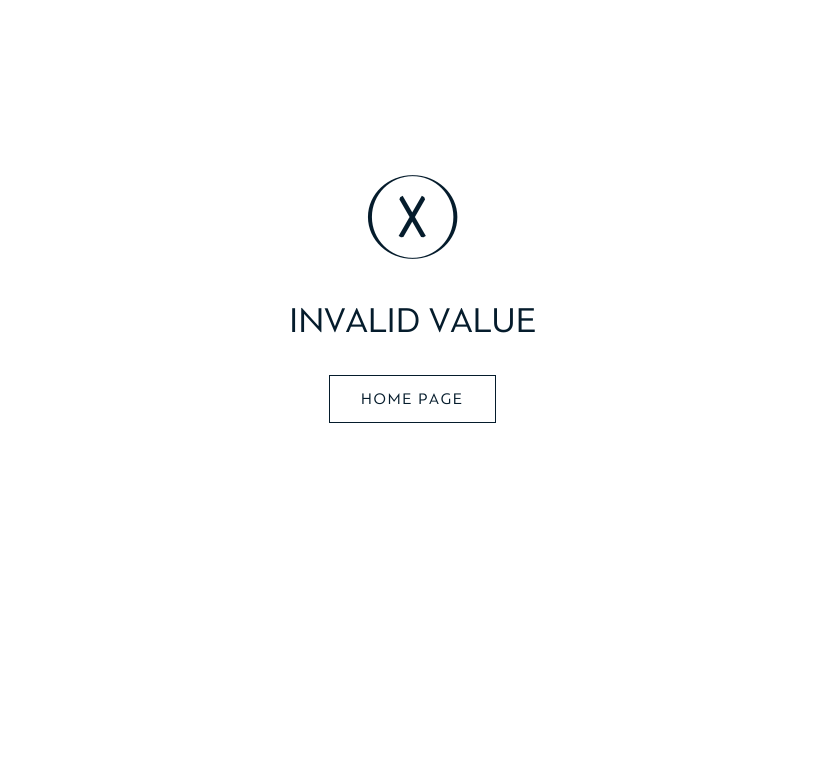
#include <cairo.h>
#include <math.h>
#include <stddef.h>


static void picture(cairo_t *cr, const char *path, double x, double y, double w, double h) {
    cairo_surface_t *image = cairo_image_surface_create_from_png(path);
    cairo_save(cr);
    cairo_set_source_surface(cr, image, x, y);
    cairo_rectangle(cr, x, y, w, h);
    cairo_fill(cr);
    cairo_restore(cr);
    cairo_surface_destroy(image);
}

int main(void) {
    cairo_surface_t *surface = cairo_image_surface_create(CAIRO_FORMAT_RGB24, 825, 782);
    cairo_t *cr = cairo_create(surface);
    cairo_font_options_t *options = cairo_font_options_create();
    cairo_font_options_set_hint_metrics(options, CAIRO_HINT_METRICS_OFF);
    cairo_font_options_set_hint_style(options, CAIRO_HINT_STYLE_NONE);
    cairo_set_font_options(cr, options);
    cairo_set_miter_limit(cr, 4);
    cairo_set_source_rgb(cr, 1, 1, 1);
    cairo_paint(cr);
    picture(cr, "img1.png", 367, 175, 91, 84);
    picture(cr, "img2.png", 292, 307, 243, 26);
    cairo_rectangle(cr, 329.5, 375.5, 166, 47);
    cairo_set_source_rgb(cr, 0.02, 0.11, 0.173);
    cairo_set_line_width(cr, 1);
    cairo_stroke(cr);
    picture(cr, "img3.png", 362, 393, 100, 12);
    cairo_surface_write_to_png(surface, "page.png");
    cairo_font_options_destroy(options);
    cairo_destroy(cr);
    cairo_surface_destroy(surface);
    return 0;
}
